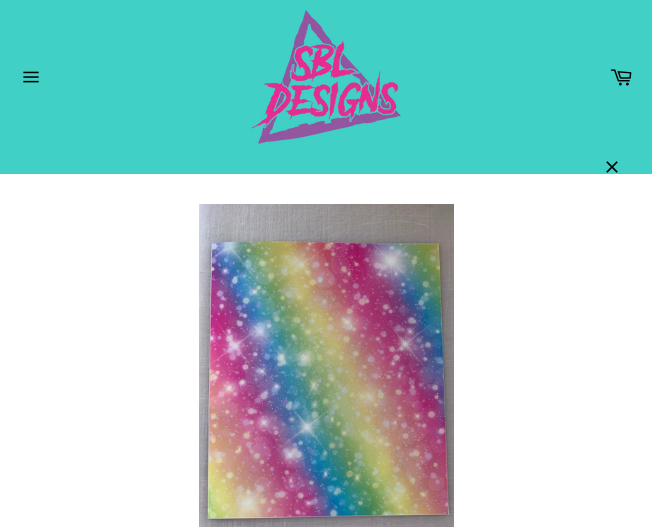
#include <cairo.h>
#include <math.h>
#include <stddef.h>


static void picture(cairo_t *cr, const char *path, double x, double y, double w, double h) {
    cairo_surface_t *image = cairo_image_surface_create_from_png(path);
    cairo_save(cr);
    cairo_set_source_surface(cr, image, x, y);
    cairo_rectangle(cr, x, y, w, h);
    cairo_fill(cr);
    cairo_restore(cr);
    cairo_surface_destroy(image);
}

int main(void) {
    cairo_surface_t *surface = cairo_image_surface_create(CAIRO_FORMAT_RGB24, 652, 527);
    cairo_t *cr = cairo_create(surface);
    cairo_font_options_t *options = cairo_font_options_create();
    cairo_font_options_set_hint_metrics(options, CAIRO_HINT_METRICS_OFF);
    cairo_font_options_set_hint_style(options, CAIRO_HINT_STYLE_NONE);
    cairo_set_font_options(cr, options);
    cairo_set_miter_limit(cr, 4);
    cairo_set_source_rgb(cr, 0.251, 0.816, 0.773);
    cairo_paint(cr);
    picture(cr, "img1.png", 23, 71, 16, 12);
    picture(cr, "img2.png", 251, 10, 150, 134);
    picture(cr, "img3.png", 610, 69, 22, 17);
    picture(cr, "img4.png", 606, 161, 12, 12);
    cairo_set_source_rgb(cr, 1, 1, 1);
    cairo_rectangle(cr, 0, 174, 652, 353);
    cairo_fill(cr);
    picture(cr, "img5.png", 199, 204, 255, 323);
    cairo_surface_write_to_png(surface, "page.png");
    cairo_font_options_destroy(options);
    cairo_destroy(cr);
    cairo_surface_destroy(surface);
    return 0;
}
